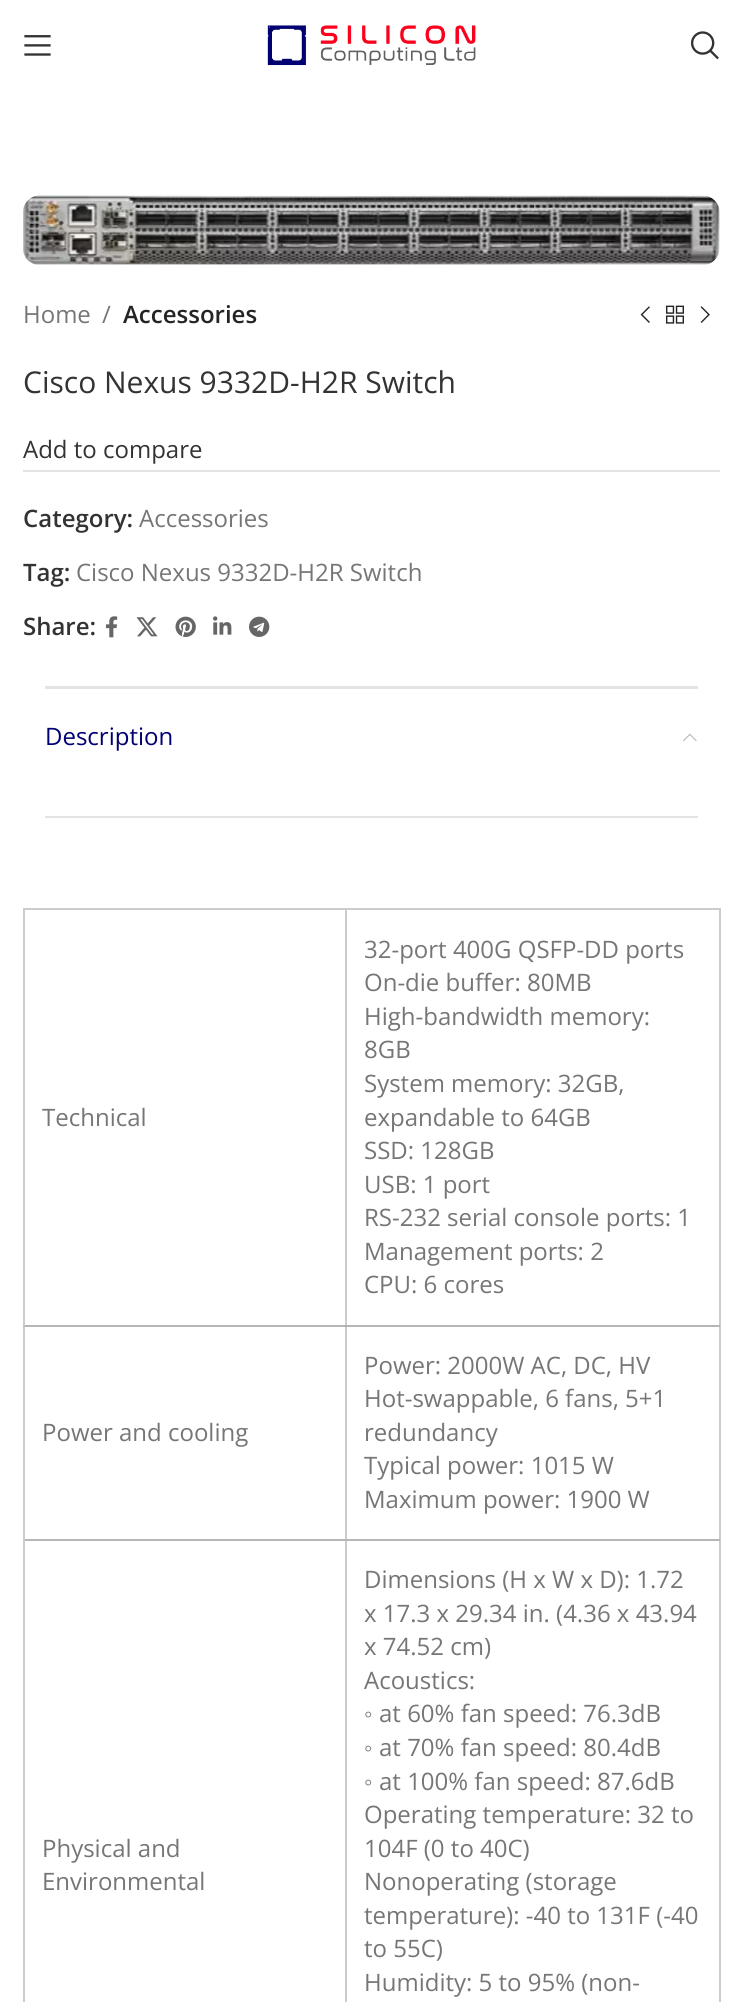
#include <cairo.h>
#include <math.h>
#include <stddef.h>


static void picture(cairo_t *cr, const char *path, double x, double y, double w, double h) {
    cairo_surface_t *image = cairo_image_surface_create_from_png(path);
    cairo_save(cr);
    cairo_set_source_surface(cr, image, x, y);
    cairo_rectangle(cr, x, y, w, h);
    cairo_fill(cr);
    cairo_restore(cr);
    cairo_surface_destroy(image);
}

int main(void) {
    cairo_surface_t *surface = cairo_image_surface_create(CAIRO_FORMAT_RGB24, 742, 2002);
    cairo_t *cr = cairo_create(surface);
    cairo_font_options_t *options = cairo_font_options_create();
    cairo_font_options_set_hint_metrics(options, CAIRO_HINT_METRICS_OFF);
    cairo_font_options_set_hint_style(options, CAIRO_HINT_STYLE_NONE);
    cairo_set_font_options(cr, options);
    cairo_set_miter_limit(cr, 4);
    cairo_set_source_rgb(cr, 1, 1, 1);
    cairo_paint(cr);
    picture(cr, "img1.png", 24, 35, 27, 21);
    picture(cr, "img2.png", 267, 25, 209, 41);
    picture(cr, "img3.png", 691, 31, 28, 29);
    picture(cr, "img4.png", 23, 195, 697, 70);
    cairo_select_font_face(cr, "Open Sans", CAIRO_FONT_SLANT_NORMAL, CAIRO_FONT_WEIGHT_NORMAL);
    cairo_set_font_size(cr, 24);
    cairo_set_source_rgb(cr, 0.463, 0.463, 0.463);
    cairo_move_to(cr, 23, 323);
    cairo_show_text(cr, "Home");
    cairo_move_to(cr, 102, 323);
    cairo_show_text(cr, "/");
    cairo_select_font_face(cr, "Open Sans SemiBold", CAIRO_FONT_SLANT_NORMAL, CAIRO_FONT_WEIGHT_NORMAL);
    cairo_set_source_rgb(cr, 0.141, 0.141, 0.141);
    cairo_move_to(cr, 123, 323);
    cairo_show_text(cr, "Accessories");
    picture(cr, "img5.png", 640, 306, 10, 17);
    picture(cr, "img6.png", 666, 305, 18, 19);
    picture(cr, "img7.png", 700, 306, 10, 17);
    cairo_select_font_face(cr, "Open Sans", CAIRO_FONT_SLANT_NORMAL, CAIRO_FONT_WEIGHT_NORMAL);
    cairo_set_font_size(cr, 30);
    cairo_set_source_rgb(cr, 0.2, 0.2, 0.2);
    cairo_move_to(cr, 23, 393);
    cairo_show_text(cr, "Cisco Nexus 9332D-H2R Switch");
    cairo_set_font_size(cr, 24);
    cairo_move_to(cr, 23, 458);
    cairo_show_text(cr, "Add to compare");
    cairo_set_source_rgb(cr, 0.894, 0.894, 0.894);
    cairo_rectangle(cr, 23, 470, 697, 2);
    cairo_fill(cr);
    cairo_select_font_face(cr, "Open Sans SemiBold", CAIRO_FONT_SLANT_NORMAL, CAIRO_FONT_WEIGHT_NORMAL);
    cairo_set_source_rgb(cr, 0.2, 0.2, 0.2);
    cairo_move_to(cr, 23, 527);
    cairo_show_text(cr, "Category:");
    cairo_select_font_face(cr, "Open Sans", CAIRO_FONT_SLANT_NORMAL, CAIRO_FONT_WEIGHT_NORMAL);
    cairo_set_source_rgb(cr, 0.463, 0.463, 0.463);
    cairo_move_to(cr, 139, 527);
    cairo_show_text(cr, "Accessories");
    cairo_select_font_face(cr, "Open Sans SemiBold", CAIRO_FONT_SLANT_NORMAL, CAIRO_FONT_WEIGHT_NORMAL);
    cairo_set_source_rgb(cr, 0.2, 0.2, 0.2);
    cairo_move_to(cr, 23, 581);
    cairo_show_text(cr, "Tag:");
    cairo_select_font_face(cr, "Open Sans", CAIRO_FONT_SLANT_NORMAL, CAIRO_FONT_WEIGHT_NORMAL);
    cairo_set_source_rgb(cr, 0.463, 0.463, 0.463);
    cairo_move_to(cr, 76, 581);
    cairo_show_text(cr, "Cisco Nexus 9332D-H2R Switch");
    cairo_select_font_face(cr, "Open Sans SemiBold", CAIRO_FONT_SLANT_NORMAL, CAIRO_FONT_WEIGHT_NORMAL);
    cairo_set_source_rgb(cr, 0.2, 0.2, 0.2);
    cairo_move_to(cr, 23, 635);
    cairo_show_text(cr, "Share:");
    picture(cr, "img8.png", 105, 616, 13, 22);
    picture(cr, "img9.png", 136, 617, 22, 20);
    picture(cr, "img10.png", 175, 616, 21, 21);
    picture(cr, "img11.png", 213, 616, 19, 19);
    picture(cr, "img12.png", 249, 616, 21, 21);
    cairo_set_source_rgb(cr, 0.894, 0.894, 0.894);
    cairo_rectangle(cr, 45, 686, 653, 3);
    cairo_fill(cr);
    cairo_rectangle(cr, 45, 816, 653, 2);
    cairo_fill(cr);
    cairo_select_font_face(cr, "Open Sans", CAIRO_FONT_SLANT_NORMAL, CAIRO_FONT_WEIGHT_NORMAL);
    cairo_set_source_rgb(cr, 0, 0, 0.447);
    cairo_move_to(cr, 45, 745);
    cairo_show_text(cr, "Description");
    picture(cr, "img13.png", 683, 733, 14, 9);
    cairo_set_source_rgb(cr, 0.8, 0.8, 0.8);
    cairo_rectangle(cr, 345, 908, 375, 2);
    cairo_fill(cr);
    cairo_rectangle(cr, 719, 1325, 2, 677);
    cairo_fill(cr);
    cairo_rectangle(cr, 719, 908, 2, 418);
    cairo_fill(cr);
    cairo_rectangle(cr, 345, 1539, 2, 463);
    cairo_fill(cr);
    cairo_set_source_rgb(cr, 0.714, 0.714, 0.714);
    cairo_rectangle(cr, 345, 1539, 375, 2);
    cairo_fill(cr);
    cairo_set_source_rgb(cr, 0.8, 0.8, 0.8);
    cairo_rectangle(cr, 345, 1325, 2, 216);
    cairo_fill(cr);
    cairo_set_source_rgb(cr, 0.714, 0.714, 0.714);
    cairo_rectangle(cr, 23, 1325, 324, 2);
    cairo_fill(cr);
    cairo_rectangle(cr, 345, 1325, 375, 2);
    cairo_fill(cr);
    cairo_set_source_rgb(cr, 0.8, 0.8, 0.8);
    cairo_rectangle(cr, 345, 908, 2, 418);
    cairo_fill(cr);
    cairo_rectangle(cr, 23, 908, 324, 2);
    cairo_fill(cr);
    cairo_rectangle(cr, 23, 1539, 2, 463);
    cairo_fill(cr);
    cairo_set_source_rgb(cr, 0.714, 0.714, 0.714);
    cairo_rectangle(cr, 23, 1539, 324, 2);
    cairo_fill(cr);
    cairo_set_source_rgb(cr, 0.8, 0.8, 0.8);
    cairo_rectangle(cr, 23, 1325, 2, 216);
    cairo_fill(cr);
    cairo_rectangle(cr, 23, 908, 2, 418);
    cairo_fill(cr);
    cairo_set_source_rgb(cr, 0.463, 0.463, 0.463);
    cairo_move_to(cr, 42, 1126);
    cairo_show_text(cr, "Technical");
    cairo_set_source_rgb(cr, 0.635, 0.635, 0.635);
    cairo_rectangle(cr, 345, 1326, 2, 1);
    cairo_fill(cr);
    cairo_set_source_rgb(cr, 0.714, 0.714, 0.714);
    cairo_rectangle(cr, 345, 1325, 2, 1);
    cairo_fill(cr);
    cairo_set_source_rgb(cr, 0.463, 0.463, 0.463);
    cairo_move_to(cr, 364, 958);
    cairo_show_text(cr, "32-port 400G QSFP-DD ports");
    cairo_move_to(cr, 364, 991);
    cairo_show_text(cr, "On-die buffer: 80MB");
    cairo_move_to(cr, 364, 1025);
    cairo_show_text(cr, "High-bandwidth memory:");
    cairo_move_to(cr, 364, 1058);
    cairo_show_text(cr, "8GB");
    cairo_move_to(cr, 364, 1092);
    cairo_show_text(cr, "System memory: 32GB,");
    cairo_move_to(cr, 364, 1126);
    cairo_show_text(cr, "expandable to 64GB");
    cairo_move_to(cr, 364, 1159);
    cairo_show_text(cr, "SSD: 128GB");
    cairo_move_to(cr, 364, 1193);
    cairo_show_text(cr, "USB: 1 port");
    cairo_move_to(cr, 364, 1226);
    cairo_show_text(cr, "RS-232 serial console ports: 1");
    cairo_move_to(cr, 364, 1260);
    cairo_show_text(cr, "Management ports: 2");
    cairo_move_to(cr, 364, 1293);
    cairo_show_text(cr, "CPU: 6 cores");
    cairo_set_source_rgb(cr, 0.714, 0.714, 0.714);
    cairo_rectangle(cr, 23, 1326, 2, 1);
    cairo_fill(cr);
    cairo_set_source_rgb(cr, 0.463, 0.463, 0.463);
    cairo_move_to(cr, 42, 1441);
    cairo_show_text(cr, "Power and cooling");
    cairo_move_to(cr, 364, 1374);
    cairo_show_text(cr, "Power: 2000W AC, DC, HV");
    cairo_move_to(cr, 364, 1407);
    cairo_show_text(cr, "Hot-swappable, 6 fans, 5+1");
    cairo_move_to(cr, 364, 1441);
    cairo_show_text(cr, "redundancy");
    cairo_move_to(cr, 364, 1474);
    cairo_show_text(cr, "Typical power: 1015 W");
    cairo_move_to(cr, 364, 1508);
    cairo_show_text(cr, "Maximum power: 1900 W");
    cairo_move_to(cr, 42, 1857);
    cairo_show_text(cr, "Physical and");
    cairo_move_to(cr, 42, 1890);
    cairo_show_text(cr, "Environmental");
    cairo_move_to(cr, 364, 1588);
    cairo_show_text(cr, "Dimensions (H x W x D): 1.72");
    cairo_move_to(cr, 364, 1622);
    cairo_show_text(cr, "x 17.3 x 29.34 in. (4.36 x 43.94");
    cairo_move_to(cr, 364, 1655);
    cairo_show_text(cr, "x 74.52 cm)");
    cairo_move_to(cr, 364, 1689);
    cairo_show_text(cr, "Acoustics:");
    cairo_select_font_face(cr, "Liberation Sans", CAIRO_FONT_SLANT_NORMAL, CAIRO_FONT_WEIGHT_NORMAL);
    cairo_move_to(cr, 364, 1722);
    cairo_show_text(cr, "◦");
    cairo_select_font_face(cr, "Open Sans", CAIRO_FONT_SLANT_NORMAL, CAIRO_FONT_WEIGHT_NORMAL);
    cairo_move_to(cr, 379, 1722);
    cairo_show_text(cr, "at 60% fan speed: 76.3dB");
    cairo_select_font_face(cr, "Liberation Sans", CAIRO_FONT_SLANT_NORMAL, CAIRO_FONT_WEIGHT_NORMAL);
    cairo_move_to(cr, 364, 1756);
    cairo_show_text(cr, "◦");
    cairo_select_font_face(cr, "Open Sans", CAIRO_FONT_SLANT_NORMAL, CAIRO_FONT_WEIGHT_NORMAL);
    cairo_move_to(cr, 379, 1756);
    cairo_show_text(cr, "at 70% fan speed: 80.4dB");
    cairo_select_font_face(cr, "Liberation Sans", CAIRO_FONT_SLANT_NORMAL, CAIRO_FONT_WEIGHT_NORMAL);
    cairo_move_to(cr, 364, 1790);
    cairo_show_text(cr, "◦");
    cairo_select_font_face(cr, "Open Sans", CAIRO_FONT_SLANT_NORMAL, CAIRO_FONT_WEIGHT_NORMAL);
    cairo_move_to(cr, 379, 1790);
    cairo_show_text(cr, "at 100% fan speed: 87.6dB");
    cairo_move_to(cr, 364, 1823);
    cairo_show_text(cr, "Operating temperature: 32 to");
    cairo_move_to(cr, 364, 1857);
    cairo_show_text(cr, "104F (0 to 40C)");
    cairo_move_to(cr, 364, 1890);
    cairo_show_text(cr, "Nonoperating (storage");
    cairo_move_to(cr, 364, 1924);
    cairo_show_text(cr, "temperature): -40 to 131F (-40");
    cairo_move_to(cr, 364, 1957);
    cairo_show_text(cr, "to 55C)");
    cairo_move_to(cr, 364, 1991);
    cairo_show_text(cr, "Humidity: 5 to 95% (non-");
    cairo_surface_write_to_png(surface, "page.png");
    cairo_font_options_destroy(options);
    cairo_destroy(cr);
    cairo_surface_destroy(surface);
    return 0;
}
